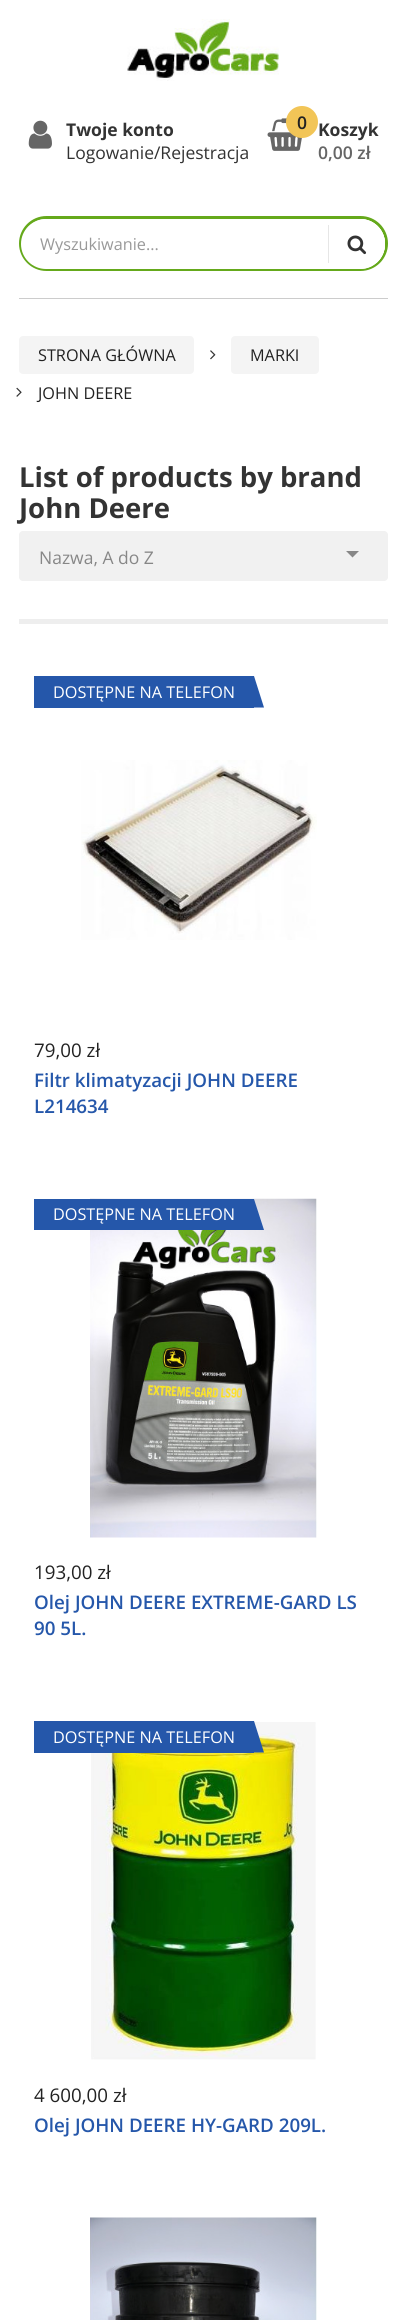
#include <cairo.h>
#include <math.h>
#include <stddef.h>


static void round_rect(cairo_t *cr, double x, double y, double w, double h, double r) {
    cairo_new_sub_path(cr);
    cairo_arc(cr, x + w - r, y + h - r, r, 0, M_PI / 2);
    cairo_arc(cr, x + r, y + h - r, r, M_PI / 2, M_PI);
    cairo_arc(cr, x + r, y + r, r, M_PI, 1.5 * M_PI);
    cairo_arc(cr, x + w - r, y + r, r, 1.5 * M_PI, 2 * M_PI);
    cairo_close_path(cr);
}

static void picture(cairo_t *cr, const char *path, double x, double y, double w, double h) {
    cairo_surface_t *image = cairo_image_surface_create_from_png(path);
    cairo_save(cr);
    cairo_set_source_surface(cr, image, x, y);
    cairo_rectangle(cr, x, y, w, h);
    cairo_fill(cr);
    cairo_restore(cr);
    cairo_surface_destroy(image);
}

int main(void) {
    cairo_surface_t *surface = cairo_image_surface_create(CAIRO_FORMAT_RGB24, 406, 2320);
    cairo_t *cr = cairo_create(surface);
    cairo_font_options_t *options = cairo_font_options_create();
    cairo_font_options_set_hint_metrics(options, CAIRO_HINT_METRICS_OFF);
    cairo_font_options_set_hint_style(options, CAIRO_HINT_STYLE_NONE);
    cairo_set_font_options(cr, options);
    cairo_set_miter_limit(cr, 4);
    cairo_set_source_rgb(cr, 1, 1, 1);
    cairo_paint(cr);
    picture(cr, "img1.png", 127, 19, 152, 62);
    picture(cr, "img2.png", 28, 120, 24, 29);
    cairo_select_font_face(cr, "Open Sans", CAIRO_FONT_SLANT_NORMAL, CAIRO_FONT_WEIGHT_BOLD);
    cairo_set_font_size(cr, 17.5);
    cairo_set_source_rgb(cr, 0.2, 0.2, 0.2);
    cairo_move_to(cr, 66, 136);
    cairo_show_text(cr, "Twoje konto");
    cairo_select_font_face(cr, "Open Sans", CAIRO_FONT_SLANT_NORMAL, CAIRO_FONT_WEIGHT_NORMAL);
    cairo_move_to(cr, 66, 159);
    cairo_show_text(cr, "Logowanie/Rejestracja");
    picture(cr, "img3.png", 267, 118, 35, 33);
    cairo_set_source_rgb(cr, 0.949, 0.773, 0.341);
    cairo_arc(cr, 302, 122, 16, 0, 2 * M_PI);
    cairo_fill(cr);
    cairo_select_font_face(cr, "Open Sans SemiBold", CAIRO_FONT_SLANT_NORMAL, CAIRO_FONT_WEIGHT_NORMAL);
    cairo_set_source_rgb(cr, 0.133, 0.133, 0.133);
    cairo_move_to(cr, 297, 129);
    cairo_show_text(cr, "0");
    cairo_select_font_face(cr, "Open Sans", CAIRO_FONT_SLANT_NORMAL, CAIRO_FONT_WEIGHT_BOLD);
    cairo_set_source_rgb(cr, 0.2, 0.2, 0.2);
    cairo_move_to(cr, 318, 136);
    cairo_show_text(cr, "Koszyk");
    cairo_select_font_face(cr, "Open Sans SemiBold", CAIRO_FONT_SLANT_NORMAL, CAIRO_FONT_WEIGHT_NORMAL);
    cairo_set_source_rgb(cr, 0.4, 0.4, 0.4);
    cairo_move_to(cr, 318, 159);
    cairo_show_text(cr, "0,00 zł");
    round_rect(cr, 20.5, 217.5, 366, 52, 26);
    cairo_set_source_rgb(cr, 0.396, 0.663, 0.106);
    cairo_set_line_width(cr, 3);
    cairo_stroke(cr);
    cairo_set_source_rgb(cr, 1, 1, 1);
    round_rect(cr, 21, 219, 364, 50, 25);
    cairo_fill(cr);
    cairo_select_font_face(cr, "Open Sans", CAIRO_FONT_SLANT_NORMAL, CAIRO_FONT_WEIGHT_NORMAL);
    cairo_set_font_size(cr, 16.25);
    cairo_set_source_rgb(cr, 0.6, 0.6, 0.6);
    cairo_move_to(cr, 40, 250);
    cairo_show_text(cr, "Wyszukiwanie...");
    cairo_set_source_rgb(cr, 1, 1, 1);
    cairo_new_path(cr);
    cairo_move_to(cr, 328, 219);
    cairo_line_to(cr, 360, 219);
    cairo_curve_to(cr, 374, 219, 385, 230, 385, 244);
    cairo_curve_to(cr, 385, 258, 374, 269, 360, 269);
    cairo_line_to(cr, 328, 269);
    cairo_close_path(cr);
    cairo_fill(cr);
    cairo_save(cr);
    round_rect(cr, 21, 219, 364, 50, 25);
    cairo_clip(cr);
    cairo_new_path(cr);
    cairo_move_to(cr, 328, 225);
    cairo_line_to(cr, 381, 225);
    cairo_curve_to(cr, 383, 225, 385, 227, 385, 229);
    cairo_line_to(cr, 385, 259);
    cairo_curve_to(cr, 385, 261, 383, 263, 381, 263);
    cairo_line_to(cr, 328, 263);
    cairo_close_path(cr);
    cairo_fill(cr);
    cairo_restore(cr);
    cairo_set_source_rgb(cr, 0.902, 0.902, 0.902);
    cairo_rectangle(cr, 328, 225, 1, 38);
    cairo_fill(cr);
    picture(cr, "img4.png", 347, 235, 20, 20);
    cairo_set_source_rgb(cr, 0.8, 0.8, 0.8);
    cairo_rectangle(cr, 19, 298, 369, 1);
    cairo_fill(cr);
    cairo_set_source_rgb(cr, 0.957, 0.957, 0.957);
    round_rect(cr, 19, 336, 175, 38, 4);
    cairo_fill(cr);
    cairo_set_source_rgb(cr, 0.133, 0.133, 0.133);
    cairo_move_to(cr, 38, 361);
    cairo_show_text(cr, "STRONA GŁÓWNA");
    picture(cr, "img5.png", 210, 350, 6, 10);
    cairo_set_source_rgb(cr, 0.957, 0.957, 0.957);
    round_rect(cr, 231, 336, 88, 38, 4);
    cairo_fill(cr);
    cairo_set_source_rgb(cr, 0.133, 0.133, 0.133);
    cairo_move_to(cr, 250, 361);
    cairo_show_text(cr, "MARKI");
    picture(cr, "img6.png", 16, 387, 6, 10);
    cairo_move_to(cr, 38, 399);
    cairo_show_text(cr, "JOHN DEERE");
    cairo_select_font_face(cr, "Open Sans", CAIRO_FONT_SLANT_NORMAL, CAIRO_FONT_WEIGHT_BOLD);
    cairo_set_font_size(cr, 27.5);
    cairo_set_source_rgb(cr, 0.2, 0.2, 0.2);
    cairo_move_to(cr, 19, 487);
    cairo_show_text(cr, "List of products by brand");
    cairo_move_to(cr, 19, 518);
    cairo_show_text(cr, "John Deere");
    cairo_set_source_rgb(cr, 0.933, 0.933, 0.933);
    cairo_rectangle(cr, 19, 619, 369, 5);
    cairo_fill(cr);
    cairo_set_source_rgb(cr, 0.945, 0.945, 0.945);
    round_rect(cr, 19.5, 531.5, 368, 49, 3.5);
    cairo_fill_preserve(cr);
    cairo_set_line_width(cr, 1);
    cairo_stroke(cr);
    cairo_select_font_face(cr, "Open Sans", CAIRO_FONT_SLANT_NORMAL, CAIRO_FONT_WEIGHT_NORMAL);
    cairo_set_font_size(cr, 17.5);
    cairo_set_source_rgb(cr, 0.529, 0.529, 0.529);
    cairo_move_to(cr, 39, 564);
    cairo_show_text(cr, "Nazwa, A do Z");
    cairo_new_path(cr);
    cairo_move_to(cr, 346, 551);
    cairo_line_to(cr, 359, 551);
    cairo_line_to(cr, 352.5, 557.5);
    cairo_close_path(cr);
    cairo_fill(cr);
    cairo_set_source_rgb(cr, 0.145, 0.341, 0.667);
    cairo_rectangle(cr, 34, 676, 220, 32);
    cairo_fill(cr);
    cairo_set_font_size(cr, 16.25);
    cairo_set_source_rgb(cr, 1, 1, 1);
    cairo_move_to(cr, 53, 698);
    cairo_show_text(cr, "DOSTĘPNE NA TELEFON");
    cairo_set_source_rgb(cr, 0.145, 0.341, 0.667);
    cairo_new_path(cr);
    cairo_move_to(cr, 264, 707.5);
    cairo_line_to(cr, 254, 707.5);
    cairo_line_to(cr, 254, 676);
    cairo_close_path(cr);
    cairo_fill(cr);
    picture(cr, "img7.png", 81, 760, 236, 180);
    cairo_set_font_size(cr, 18.75);
    cairo_set_source_rgb(cr, 0.133, 0.133, 0.133);
    cairo_move_to(cr, 34, 1057);
    cairo_show_text(cr, "79,00 zł");
    cairo_select_font_face(cr, "Open Sans SemiBold", CAIRO_FONT_SLANT_NORMAL, CAIRO_FONT_WEIGHT_NORMAL);
    cairo_set_source_rgb(cr, 0.145, 0.341, 0.667);
    cairo_move_to(cr, 34, 1087);
    cairo_show_text(cr, "Filtr klimatyzacji JOHN DEERE");
    cairo_move_to(cr, 34, 1113);
    cairo_show_text(cr, "L214634");
    picture(cr, "img8.png", 90, 1198, 227, 340);
    cairo_rectangle(cr, 34, 1199, 220, 31);
    cairo_fill(cr);
    cairo_select_font_face(cr, "Open Sans", CAIRO_FONT_SLANT_NORMAL, CAIRO_FONT_WEIGHT_NORMAL);
    cairo_set_font_size(cr, 16.25);
    cairo_set_source_rgb(cr, 1, 1, 1);
    cairo_move_to(cr, 53, 1220);
    cairo_show_text(cr, "DOSTĘPNE NA TELEFON");
    cairo_set_source_rgb(cr, 0.145, 0.341, 0.667);
    cairo_new_path(cr);
    cairo_move_to(cr, 264, 1230);
    cairo_line_to(cr, 254, 1230);
    cairo_line_to(cr, 254, 1199);
    cairo_close_path(cr);
    cairo_fill(cr);
    cairo_set_font_size(cr, 18.75);
    cairo_set_source_rgb(cr, 0.133, 0.133, 0.133);
    cairo_move_to(cr, 34, 1579);
    cairo_show_text(cr, "193,00 zł");
    cairo_select_font_face(cr, "Open Sans SemiBold", CAIRO_FONT_SLANT_NORMAL, CAIRO_FONT_WEIGHT_NORMAL);
    cairo_set_source_rgb(cr, 0.145, 0.341, 0.667);
    cairo_move_to(cr, 34, 1609);
    cairo_show_text(cr, "Olej JOHN DEERE EXTREME-GARD LS");
    cairo_move_to(cr, 34, 1635);
    cairo_show_text(cr, "90 5L.");
    picture(cr, "img9.png", 91, 1722, 225, 338);
    cairo_rectangle(cr, 34, 1721, 220, 32);
    cairo_fill(cr);
    cairo_select_font_face(cr, "Open Sans", CAIRO_FONT_SLANT_NORMAL, CAIRO_FONT_WEIGHT_NORMAL);
    cairo_set_font_size(cr, 16.25);
    cairo_set_source_rgb(cr, 1, 1, 1);
    cairo_move_to(cr, 53, 1743);
    cairo_show_text(cr, "DOSTĘPNE NA TELEFON");
    cairo_set_source_rgb(cr, 0.145, 0.341, 0.667);
    cairo_new_path(cr);
    cairo_move_to(cr, 264, 1752.5);
    cairo_line_to(cr, 254, 1752.5);
    cairo_line_to(cr, 254, 1721);
    cairo_close_path(cr);
    cairo_fill(cr);
    cairo_set_font_size(cr, 18.75);
    cairo_set_source_rgb(cr, 0.133, 0.133, 0.133);
    cairo_move_to(cr, 34, 2102);
    cairo_show_text(cr, "4 600,00 zł");
    cairo_select_font_face(cr, "Open Sans SemiBold", CAIRO_FONT_SLANT_NORMAL, CAIRO_FONT_WEIGHT_NORMAL);
    cairo_set_source_rgb(cr, 0.145, 0.341, 0.667);
    cairo_move_to(cr, 34, 2132);
    cairo_show_text(cr, "Olej JOHN DEERE HY-GARD 209L.");
    picture(cr, "img10.png", 90, 2217, 227, 103);
    cairo_surface_write_to_png(surface, "page.png");
    cairo_font_options_destroy(options);
    cairo_destroy(cr);
    cairo_surface_destroy(surface);
    return 0;
}
